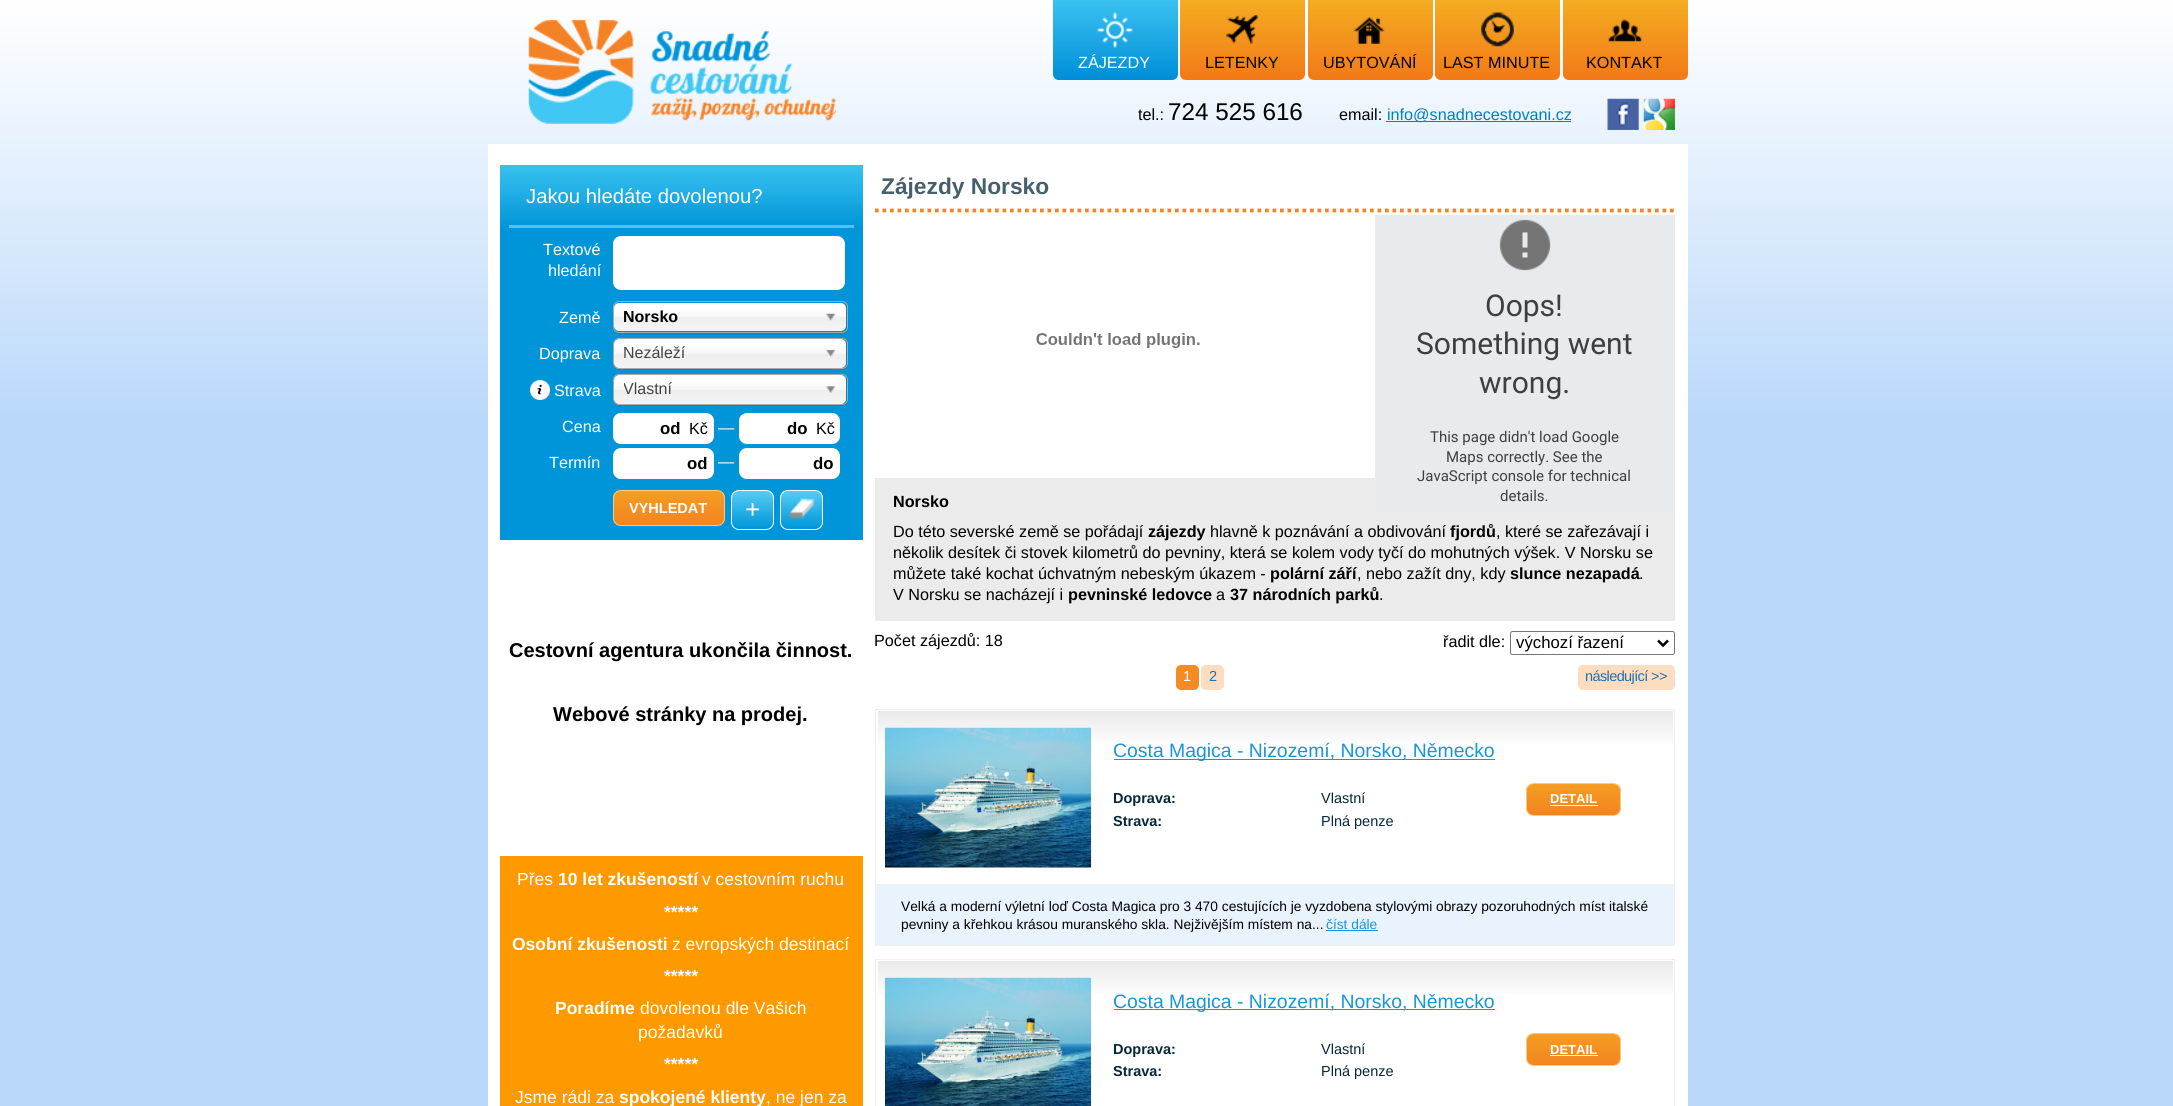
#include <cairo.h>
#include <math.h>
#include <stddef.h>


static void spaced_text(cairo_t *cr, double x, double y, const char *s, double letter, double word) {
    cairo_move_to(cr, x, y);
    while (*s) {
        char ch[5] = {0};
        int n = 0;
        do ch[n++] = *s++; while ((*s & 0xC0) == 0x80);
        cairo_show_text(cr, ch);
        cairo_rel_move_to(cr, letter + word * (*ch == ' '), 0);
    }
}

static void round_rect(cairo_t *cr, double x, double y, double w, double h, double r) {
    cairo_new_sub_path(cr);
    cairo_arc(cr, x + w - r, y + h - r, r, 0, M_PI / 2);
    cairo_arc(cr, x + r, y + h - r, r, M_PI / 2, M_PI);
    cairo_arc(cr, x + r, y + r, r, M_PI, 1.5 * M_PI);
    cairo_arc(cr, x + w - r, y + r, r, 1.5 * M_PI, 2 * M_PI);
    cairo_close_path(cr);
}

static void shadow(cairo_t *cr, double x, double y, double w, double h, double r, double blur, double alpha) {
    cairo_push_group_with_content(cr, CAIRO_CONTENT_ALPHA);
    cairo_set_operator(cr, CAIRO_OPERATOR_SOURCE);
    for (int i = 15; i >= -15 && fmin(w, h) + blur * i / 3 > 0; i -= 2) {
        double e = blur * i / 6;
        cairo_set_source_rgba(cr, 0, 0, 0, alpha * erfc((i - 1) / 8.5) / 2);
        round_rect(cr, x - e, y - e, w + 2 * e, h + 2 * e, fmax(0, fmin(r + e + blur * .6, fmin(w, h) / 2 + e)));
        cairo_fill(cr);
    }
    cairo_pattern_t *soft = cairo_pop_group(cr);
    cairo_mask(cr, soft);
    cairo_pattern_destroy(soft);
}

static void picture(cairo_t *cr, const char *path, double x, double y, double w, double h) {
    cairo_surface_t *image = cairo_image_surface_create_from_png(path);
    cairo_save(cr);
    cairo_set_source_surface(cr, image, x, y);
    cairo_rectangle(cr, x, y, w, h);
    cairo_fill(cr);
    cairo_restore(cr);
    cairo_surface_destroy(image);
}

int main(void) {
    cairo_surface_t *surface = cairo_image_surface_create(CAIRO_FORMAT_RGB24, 2173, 1106);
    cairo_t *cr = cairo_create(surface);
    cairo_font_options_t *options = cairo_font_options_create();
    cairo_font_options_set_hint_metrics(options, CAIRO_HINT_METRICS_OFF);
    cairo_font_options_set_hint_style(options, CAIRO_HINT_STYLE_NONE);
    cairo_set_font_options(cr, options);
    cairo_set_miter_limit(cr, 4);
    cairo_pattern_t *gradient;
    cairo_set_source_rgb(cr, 0.729, 0.847, 0.98);
    cairo_paint(cr);
    gradient = cairo_pattern_create_linear(0, 0, 0, 425);
    cairo_pattern_add_color_stop_rgba(gradient, 0, 1, 1, 1, 1);
    cairo_pattern_add_color_stop_rgba(gradient, 1, 0.729, 0.847, 0.98, 1);
    cairo_set_source(cr, gradient);
    cairo_pattern_destroy(gradient);
    cairo_rectangle(cr, 0, 0, 2173, 410);
    cairo_fill(cr);
    picture(cr, "img1.png", 528, 20, 309, 104);
    gradient = cairo_pattern_create_linear(1053, 0, 1053, 80);
    cairo_pattern_add_color_stop_rgba(gradient, 0, 0.224, 0.761, 0.941, 1);
    cairo_pattern_add_color_stop_rgba(gradient, 1, 0, 0.553, 0.843, 1);
    cairo_set_source(cr, gradient);
    cairo_pattern_destroy(gradient);
    cairo_new_path(cr);
    cairo_move_to(cr, 1053, 0);
    cairo_line_to(cr, 1178, 0);
    cairo_line_to(cr, 1178, 74);
    cairo_curve_to(cr, 1178, 77.5, 1175.5, 80, 1172, 80);
    cairo_line_to(cr, 1059, 80);
    cairo_curve_to(cr, 1055.5, 80, 1053, 77.5, 1053, 74);
    cairo_close_path(cr);
    cairo_fill(cr);
    picture(cr, "img2.png", 1097, 12, 36, 36);
    cairo_select_font_face(cr, "Liberation Sans", CAIRO_FONT_SLANT_NORMAL, CAIRO_FONT_WEIGHT_NORMAL);
    cairo_set_font_size(cr, 16.2);
    cairo_set_source_rgb(cr, 1, 1, 1);
    cairo_move_to(cr, 1078, 68);
    cairo_show_text(cr, "ZÁJEZDY");
    gradient = cairo_pattern_create_linear(1180, 0, 1180, 80);
    cairo_pattern_add_color_stop_rgba(gradient, 0, 0.957, 0.675, 0.133, 1);
    cairo_pattern_add_color_stop_rgba(gradient, 1, 0.949, 0.475, 0.09, 1);
    cairo_set_source(cr, gradient);
    cairo_pattern_destroy(gradient);
    cairo_new_path(cr);
    cairo_move_to(cr, 1180, 0);
    cairo_line_to(cr, 1305, 0);
    cairo_line_to(cr, 1305, 74);
    cairo_curve_to(cr, 1305, 77.5, 1302.5, 80, 1299, 80);
    cairo_line_to(cr, 1186, 80);
    cairo_curve_to(cr, 1182.5, 80, 1180, 77.5, 1180, 74);
    cairo_close_path(cr);
    cairo_fill(cr);
    picture(cr, "img3.png", 1226, 15, 32, 29);
    cairo_set_source_rgb(cr, 0, 0, 0);
    cairo_move_to(cr, 1205, 68);
    cairo_show_text(cr, "LETENKY");
    gradient = cairo_pattern_create_linear(1308, 0, 1308, 80);
    cairo_pattern_add_color_stop_rgba(gradient, 0, 0.957, 0.675, 0.133, 1);
    cairo_pattern_add_color_stop_rgba(gradient, 1, 0.949, 0.475, 0.09, 1);
    cairo_set_source(cr, gradient);
    cairo_pattern_destroy(gradient);
    cairo_new_path(cr);
    cairo_move_to(cr, 1308, 0);
    cairo_line_to(cr, 1433, 0);
    cairo_line_to(cr, 1433, 74);
    cairo_curve_to(cr, 1433, 77.5, 1430.5, 80, 1427, 80);
    cairo_line_to(cr, 1314, 80);
    cairo_curve_to(cr, 1310.5, 80, 1308, 77.5, 1308, 74);
    cairo_close_path(cr);
    cairo_fill(cr);
    picture(cr, "img4.png", 1353, 16, 32, 28);
    cairo_set_source_rgb(cr, 0, 0, 0);
    cairo_move_to(cr, 1323, 68);
    cairo_show_text(cr, "UBYTOVÁNÍ");
    gradient = cairo_pattern_create_linear(1435, 0, 1435, 80);
    cairo_pattern_add_color_stop_rgba(gradient, 0, 0.957, 0.675, 0.133, 1);
    cairo_pattern_add_color_stop_rgba(gradient, 1, 0.949, 0.475, 0.09, 1);
    cairo_set_source(cr, gradient);
    cairo_pattern_destroy(gradient);
    cairo_new_path(cr);
    cairo_move_to(cr, 1435, 0);
    cairo_line_to(cr, 1560, 0);
    cairo_line_to(cr, 1560, 74);
    cairo_curve_to(cr, 1560, 77.5, 1557.5, 80, 1554, 80);
    cairo_line_to(cr, 1441, 80);
    cairo_curve_to(cr, 1437.5, 80, 1435, 77.5, 1435, 74);
    cairo_close_path(cr);
    cairo_fill(cr);
    picture(cr, "img5.png", 1481, 12, 33, 35);
    cairo_set_source_rgb(cr, 0, 0, 0);
    cairo_move_to(cr, 1443, 68);
    cairo_show_text(cr, "LAST MINUTE");
    gradient = cairo_pattern_create_linear(1563, 0, 1563, 80);
    cairo_pattern_add_color_stop_rgba(gradient, 0, 0.957, 0.675, 0.133, 1);
    cairo_pattern_add_color_stop_rgba(gradient, 1, 0.949, 0.475, 0.09, 1);
    cairo_set_source(cr, gradient);
    cairo_pattern_destroy(gradient);
    cairo_new_path(cr);
    cairo_move_to(cr, 1563, 0);
    cairo_line_to(cr, 1688, 0);
    cairo_line_to(cr, 1688, 74);
    cairo_curve_to(cr, 1688, 77.5, 1685.5, 80, 1682, 80);
    cairo_line_to(cr, 1569, 80);
    cairo_curve_to(cr, 1565.5, 80, 1563, 77.5, 1563, 74);
    cairo_close_path(cr);
    cairo_fill(cr);
    picture(cr, "img6.png", 1608, 18, 34, 24);
    cairo_set_source_rgb(cr, 0, 0, 0);
    cairo_move_to(cr, 1586, 68);
    cairo_show_text(cr, "KONTAKT");
    cairo_move_to(cr, 1138, 120);
    cairo_show_text(cr, "tel.:");
    cairo_set_font_size(cr, 24.25);
    cairo_move_to(cr, 1168, 120);
    cairo_show_text(cr, "724 525 616");
    cairo_set_font_size(cr, 16.2);
    cairo_move_to(cr, 1339, 120);
    cairo_show_text(cr, "email:");
    cairo_set_source_rgb(cr, 0, 0.502, 0.725);
    cairo_rectangle(cr, 1386, 121, 185, 1);
    cairo_fill(cr);
    cairo_move_to(cr, 1387, 120);
    cairo_show_text(cr, "info@snadnecestovani.cz");
    picture(cr, "img7.png", 1607, 98, 32, 32);
    picture(cr, "img8.png", 1643, 98, 32, 32);
    cairo_set_source_rgb(cr, 1, 1, 1);
    cairo_rectangle(cr, 488, 144, 1200, 962);
    cairo_fill(cr);
    gradient = cairo_pattern_create_linear(500, 165, 500, 228);
    cairo_pattern_add_color_stop_rgba(gradient, 0, 0.224, 0.761, 0.941, 1);
    cairo_pattern_add_color_stop_rgba(gradient, 1, 0, 0.584, 0.847, 1);
    cairo_set_source(cr, gradient);
    cairo_pattern_destroy(gradient);
    cairo_rectangle(cr, 500, 165, 363, 63);
    cairo_fill(cr);
    cairo_set_source_rgb(cr, 0.341, 0.745, 0.91);
    cairo_rectangle(cr, 509, 225, 345, 3);
    cairo_fill(cr);
    cairo_set_font_size(cr, 20.25);
    cairo_set_source_rgb(cr, 1, 1, 1);
    cairo_move_to(cr, 526, 203);
    cairo_show_text(cr, "Jakou hledáte dovolenou?");
    cairo_set_source_rgb(cr, 0, 0.584, 0.847);
    cairo_rectangle(cr, 500, 228, 363, 312);
    cairo_fill(cr);
    cairo_set_font_size(cr, 16.2);
    cairo_set_source_rgb(cr, 1, 1, 1);
    cairo_move_to(cr, 543, 255);
    cairo_show_text(cr, "Textové");
    cairo_move_to(cr, 548, 276);
    cairo_show_text(cr, "hledání");
    round_rect(cr, 613, 236, 232, 54, 8);
    cairo_fill(cr);
    cairo_move_to(cr, 559, 323);
    cairo_show_text(cr, "Země");
    cairo_set_source_rgb(cr, 0, 0, 0);
    shadow(cr, 613, 303, 235, 31, 6, 0.5, 0.1);
    gradient = cairo_pattern_create_linear(730, 303, 730, 331);
    cairo_pattern_add_color_stop_rgba(gradient, 0.2, 1, 1, 1, 1);
    cairo_pattern_add_color_stop_rgba(gradient, 0.5, 0.965, 0.965, 0.965, 1);
    cairo_pattern_add_color_stop_rgba(gradient, 0.52, 0.933, 0.933, 0.933, 1);
    cairo_pattern_add_color_stop_rgba(gradient, 1, 0.957, 0.957, 0.957, 1);
    cairo_set_source(cr, gradient);
    cairo_pattern_destroy(gradient);
    round_rect(cr, 614, 303, 232, 28, 5);
    cairo_fill(cr);
    round_rect(cr, 613.5, 301.5, 234, 31, 5.5);
    cairo_set_source_rgb(cr, 0.667, 0.667, 0.667);
    cairo_set_line_width(cr, 1);
    cairo_stroke(cr);
    cairo_select_font_face(cr, "Liberation Sans", CAIRO_FONT_SLANT_NORMAL, CAIRO_FONT_WEIGHT_BOLD);
    cairo_set_font_size(cr, 16);
    cairo_set_source_rgb(cr, 0, 0, 0);
    cairo_move_to(cr, 623, 322);
    cairo_show_text(cr, "Norsko");
    picture(cr, "img9.png", 826, 313, 10, 8);
    cairo_select_font_face(cr, "Liberation Sans", CAIRO_FONT_SLANT_NORMAL, CAIRO_FONT_WEIGHT_NORMAL);
    cairo_set_font_size(cr, 16.2);
    cairo_set_source_rgb(cr, 1, 1, 1);
    cairo_move_to(cr, 539, 359);
    cairo_show_text(cr, "Doprava");
    cairo_set_source_rgb(cr, 0, 0, 0);
    shadow(cr, 613, 339, 235, 31, 6, 0.5, 0.1);
    gradient = cairo_pattern_create_linear(730, 339, 730, 368);
    cairo_pattern_add_color_stop_rgba(gradient, 0.2, 1, 1, 1, 1);
    cairo_pattern_add_color_stop_rgba(gradient, 0.5, 0.965, 0.965, 0.965, 1);
    cairo_pattern_add_color_stop_rgba(gradient, 0.52, 0.933, 0.933, 0.933, 1);
    cairo_pattern_add_color_stop_rgba(gradient, 1, 0.957, 0.957, 0.957, 1);
    cairo_set_source(cr, gradient);
    cairo_pattern_destroy(gradient);
    round_rect(cr, 614, 339, 232, 29, 5);
    cairo_fill(cr);
    round_rect(cr, 613.5, 338.5, 234, 30, 5.5);
    cairo_set_source_rgb(cr, 0.667, 0.667, 0.667);
    cairo_stroke(cr);
    cairo_set_font_size(cr, 16);
    cairo_set_source_rgb(cr, 0.267, 0.267, 0.267);
    cairo_move_to(cr, 623, 358);
    cairo_show_text(cr, "Nezáleží");
    picture(cr, "img10.png", 826, 349, 10, 8);
    picture(cr, "img11.png", 530, 380, 20, 20);
    cairo_set_font_size(cr, 16.2);
    cairo_set_source_rgb(cr, 1, 1, 1);
    cairo_move_to(cr, 554, 396);
    cairo_show_text(cr, "Strava");
    cairo_set_source_rgb(cr, 0, 0, 0);
    shadow(cr, 613, 375, 235, 31, 6, 0.5, 0.1);
    gradient = cairo_pattern_create_linear(730, 375, 730, 404);
    cairo_pattern_add_color_stop_rgba(gradient, 0.2, 1, 1, 1, 1);
    cairo_pattern_add_color_stop_rgba(gradient, 0.5, 0.965, 0.965, 0.965, 1);
    cairo_pattern_add_color_stop_rgba(gradient, 0.52, 0.933, 0.933, 0.933, 1);
    cairo_pattern_add_color_stop_rgba(gradient, 1, 0.957, 0.957, 0.957, 1);
    cairo_set_source(cr, gradient);
    cairo_pattern_destroy(gradient);
    round_rect(cr, 614, 375, 232, 29, 5);
    cairo_fill(cr);
    round_rect(cr, 613.5, 374.5, 234, 30, 5.5);
    cairo_set_source_rgb(cr, 0.667, 0.667, 0.667);
    cairo_stroke(cr);
    cairo_save(cr);
    cairo_rectangle(cr, 624, 375, 190, 30);
    cairo_clip(cr);
    cairo_set_font_size(cr, 16);
    cairo_set_source_rgb(cr, 0.267, 0.267, 0.267);
    cairo_move_to(cr, 623, 394);
    cairo_show_text(cr, "Vlastní");
    cairo_restore(cr);
    picture(cr, "img12.png", 826, 386, 10, 7);
    cairo_set_source_rgb(cr, 1, 1, 1);
    cairo_move_to(cr, 562, 432);
    cairo_show_text(cr, "Cena");
    cairo_new_path(cr);
    cairo_move_to(cr, 621, 413);
    cairo_line_to(cr, 688, 413);
    cairo_line_to(cr, 688, 444);
    cairo_line_to(cr, 621, 444);
    cairo_curve_to(cr, 616.5, 444, 613, 440.5, 613, 436);
    cairo_line_to(cr, 613, 421);
    cairo_curve_to(cr, 613, 416.5, 616.5, 413, 621, 413);
    cairo_close_path(cr);
    cairo_fill(cr);
    cairo_select_font_face(cr, "Liberation Sans", CAIRO_FONT_SLANT_NORMAL, CAIRO_FONT_WEIGHT_BOLD);
    cairo_set_font_size(cr, 16.75);
    cairo_set_source_rgb(cr, 0, 0, 0);
    cairo_move_to(cr, 660, 434);
    cairo_show_text(cr, "od");
    cairo_set_source_rgb(cr, 1, 1, 1);
    cairo_new_path(cr);
    cairo_move_to(cr, 688, 413);
    cairo_line_to(cr, 706, 413);
    cairo_curve_to(cr, 710.5, 413, 714, 416.5, 714, 421);
    cairo_line_to(cr, 714, 436);
    cairo_curve_to(cr, 714, 440.5, 710.5, 444, 706, 444);
    cairo_line_to(cr, 688, 444);
    cairo_close_path(cr);
    cairo_fill(cr);
    cairo_select_font_face(cr, "Liberation Sans", CAIRO_FONT_SLANT_NORMAL, CAIRO_FONT_WEIGHT_NORMAL);
    cairo_set_font_size(cr, 16.2);
    cairo_set_source_rgb(cr, 0, 0, 0);
    cairo_move_to(cr, 689, 434);
    cairo_show_text(cr, "Kč");
    cairo_set_source_rgb(cr, 1, 1, 1);
    cairo_move_to(cr, 718, 433);
    cairo_show_text(cr, "—");
    cairo_new_path(cr);
    cairo_move_to(cr, 747, 413);
    cairo_line_to(cr, 814, 413);
    cairo_line_to(cr, 814, 444);
    cairo_line_to(cr, 747, 444);
    cairo_curve_to(cr, 742.5, 444, 739, 440.5, 739, 436);
    cairo_line_to(cr, 739, 421);
    cairo_curve_to(cr, 739, 416.5, 742.5, 413, 747, 413);
    cairo_close_path(cr);
    cairo_fill(cr);
    cairo_select_font_face(cr, "Liberation Sans", CAIRO_FONT_SLANT_NORMAL, CAIRO_FONT_WEIGHT_BOLD);
    cairo_set_font_size(cr, 16.75);
    cairo_set_source_rgb(cr, 0, 0, 0);
    cairo_move_to(cr, 787, 434);
    cairo_show_text(cr, "do");
    cairo_set_source_rgb(cr, 1, 1, 1);
    cairo_new_path(cr);
    cairo_move_to(cr, 814, 413);
    cairo_line_to(cr, 832, 413);
    cairo_curve_to(cr, 836.5, 413, 840, 416.5, 840, 421);
    cairo_line_to(cr, 840, 436);
    cairo_curve_to(cr, 840, 440.5, 836.5, 444, 832, 444);
    cairo_line_to(cr, 814, 444);
    cairo_close_path(cr);
    cairo_fill(cr);
    cairo_select_font_face(cr, "Liberation Sans", CAIRO_FONT_SLANT_NORMAL, CAIRO_FONT_WEIGHT_NORMAL);
    cairo_set_font_size(cr, 16.2);
    cairo_set_source_rgb(cr, 0, 0, 0);
    cairo_move_to(cr, 816, 434);
    cairo_show_text(cr, "Kč");
    cairo_set_source_rgb(cr, 1, 1, 1);
    cairo_move_to(cr, 549, 468);
    cairo_show_text(cr, "Termín");
    round_rect(cr, 613, 448, 101, 31, 8);
    cairo_fill(cr);
    cairo_select_font_face(cr, "Liberation Sans", CAIRO_FONT_SLANT_NORMAL, CAIRO_FONT_WEIGHT_BOLD);
    cairo_set_font_size(cr, 16.75);
    cairo_set_source_rgb(cr, 0, 0, 0);
    cairo_move_to(cr, 687, 469);
    cairo_show_text(cr, "od");
    cairo_select_font_face(cr, "Liberation Sans", CAIRO_FONT_SLANT_NORMAL, CAIRO_FONT_WEIGHT_NORMAL);
    cairo_set_font_size(cr, 16.2);
    cairo_set_source_rgb(cr, 1, 1, 1);
    cairo_move_to(cr, 718, 467);
    cairo_show_text(cr, "—");
    round_rect(cr, 739, 448, 101, 31, 8);
    cairo_fill(cr);
    cairo_select_font_face(cr, "Liberation Sans", CAIRO_FONT_SLANT_NORMAL, CAIRO_FONT_WEIGHT_BOLD);
    cairo_set_font_size(cr, 16.75);
    cairo_set_source_rgb(cr, 0, 0, 0);
    cairo_move_to(cr, 813, 469);
    cairo_show_text(cr, "do");
    cairo_save(cr);
    round_rect(cr, 613, 490, 112, 36, 8);
    cairo_clip(cr);
    gradient = cairo_pattern_create_linear(614, 491, 614, 525);
    cairo_pattern_add_color_stop_rgba(gradient, 0, 0.957, 0.616, 0.137, 1);
    cairo_pattern_add_color_stop_rgba(gradient, 1, 0.957, 0.518, 0.125, 1);
    cairo_set_source(cr, gradient);
    cairo_pattern_destroy(gradient);
    cairo_rectangle(cr, 613, 491, 112, 34);
    cairo_fill(cr);
    cairo_restore(cr);
    round_rect(cr, 613.5, 490.5, 111, 35, 7.5);
    cairo_set_source_rgb(cr, 0.988, 0.788, 0.502);
    cairo_stroke(cr);
    cairo_set_font_size(cr, 14.5);
    cairo_set_source_rgb(cr, 1, 1, 1);
    cairo_move_to(cr, 629, 513);
    cairo_show_text(cr, "VYHLEDAT");
    cairo_save(cr);
    round_rect(cr, 731, 490, 43, 40, 8);
    cairo_clip(cr);
    gradient = cairo_pattern_create_linear(733, 491, 733, 529);
    cairo_pattern_add_color_stop_rgba(gradient, 0, 0.329, 0.804, 0.957, 1);
    cairo_pattern_add_color_stop_rgba(gradient, 1, 0, 0.584, 0.847, 1);
    cairo_set_source(cr, gradient);
    cairo_pattern_destroy(gradient);
    cairo_rectangle(cr, 731, 491, 43, 38);
    cairo_fill(cr);
    cairo_restore(cr);
    round_rect(cr, 731.5, 490.5, 42, 39, 7.5);
    cairo_stroke(cr);
    cairo_select_font_face(cr, "Liberation Sans", CAIRO_FONT_SLANT_NORMAL, CAIRO_FONT_WEIGHT_NORMAL);
    cairo_set_font_size(cr, 26);
    cairo_move_to(cr, 745, 518);
    cairo_show_text(cr, "+");
    cairo_save(cr);
    round_rect(cr, 780, 490, 43, 40, 8);
    cairo_clip(cr);
    gradient = cairo_pattern_create_linear(781, 491, 781, 529);
    cairo_pattern_add_color_stop_rgba(gradient, 0, 0.329, 0.804, 0.957, 1);
    cairo_pattern_add_color_stop_rgba(gradient, 1, 0, 0.584, 0.847, 1);
    cairo_set_source(cr, gradient);
    cairo_pattern_destroy(gradient);
    cairo_rectangle(cr, 780, 491, 43, 38);
    cairo_fill(cr);
    cairo_restore(cr);
    round_rect(cr, 780.5, 490.5, 42, 39, 7.5);
    cairo_stroke(cr);
    picture(cr, "img13.png", 788, 498, 27, 21);
    cairo_select_font_face(cr, "Liberation Sans", CAIRO_FONT_SLANT_NORMAL, CAIRO_FONT_WEIGHT_BOLD);
    cairo_set_font_size(cr, 20);
    cairo_set_source_rgb(cr, 0, 0, 0);
    cairo_move_to(cr, 509, 657);
    cairo_show_text(cr, "Cestovní agentura ukončila činnost.");
    cairo_move_to(cr, 553, 721);
    cairo_show_text(cr, "Webové stránky na prodej.");
    cairo_set_source_rgb(cr, 1, 0.6, 0);
    cairo_rectangle(cr, 500, 856, 363, 250);
    cairo_fill(cr);
    cairo_select_font_face(cr, "Liberation Sans", CAIRO_FONT_SLANT_NORMAL, CAIRO_FONT_WEIGHT_NORMAL);
    cairo_set_font_size(cr, 17.5);
    cairo_set_source_rgb(cr, 1, 1, 1);
    cairo_move_to(cr, 517, 885);
    cairo_show_text(cr, "Přes");
    cairo_select_font_face(cr, "Liberation Sans", CAIRO_FONT_SLANT_NORMAL, CAIRO_FONT_WEIGHT_BOLD);
    cairo_move_to(cr, 558, 885);
    cairo_show_text(cr, "10 let zkušeností");
    cairo_select_font_face(cr, "Liberation Sans", CAIRO_FONT_SLANT_NORMAL, CAIRO_FONT_WEIGHT_NORMAL);
    cairo_move_to(cr, 702, 885);
    cairo_show_text(cr, "v cestovním ruchu");
    cairo_select_font_face(cr, "Liberation Sans", CAIRO_FONT_SLANT_NORMAL, CAIRO_FONT_WEIGHT_BOLD);
    cairo_move_to(cr, 664, 918);
    cairo_show_text(cr, "*****");
    cairo_move_to(cr, 512, 950);
    cairo_show_text(cr, "Osobní zkušenosti");
    cairo_select_font_face(cr, "Liberation Sans", CAIRO_FONT_SLANT_NORMAL, CAIRO_FONT_WEIGHT_NORMAL);
    cairo_move_to(cr, 672, 950);
    cairo_show_text(cr, "z evropských destinací");
    cairo_select_font_face(cr, "Liberation Sans", CAIRO_FONT_SLANT_NORMAL, CAIRO_FONT_WEIGHT_BOLD);
    cairo_move_to(cr, 664, 982);
    cairo_show_text(cr, "*****");
    cairo_move_to(cr, 555, 1014);
    cairo_show_text(cr, "Poradíme");
    cairo_select_font_face(cr, "Liberation Sans", CAIRO_FONT_SLANT_NORMAL, CAIRO_FONT_WEIGHT_NORMAL);
    cairo_move_to(cr, 640, 1014);
    cairo_show_text(cr, "dovolenou dle Vašich");
    cairo_move_to(cr, 638, 1038);
    cairo_show_text(cr, "požadavků");
    cairo_select_font_face(cr, "Liberation Sans", CAIRO_FONT_SLANT_NORMAL, CAIRO_FONT_WEIGHT_BOLD);
    cairo_move_to(cr, 664, 1070);
    cairo_show_text(cr, "*****");
    cairo_select_font_face(cr, "Liberation Sans", CAIRO_FONT_SLANT_NORMAL, CAIRO_FONT_WEIGHT_NORMAL);
    cairo_move_to(cr, 515, 1103);
    cairo_show_text(cr, "Jsme rádi za");
    cairo_select_font_face(cr, "Liberation Sans", CAIRO_FONT_SLANT_NORMAL, CAIRO_FONT_WEIGHT_BOLD);
    cairo_move_to(cr, 619, 1103);
    cairo_show_text(cr, "spokojené klienty");
    cairo_select_font_face(cr, "Liberation Sans", CAIRO_FONT_SLANT_NORMAL, CAIRO_FONT_WEIGHT_NORMAL);
    cairo_move_to(cr, 766, 1103);
    cairo_show_text(cr, ", ne jen za");
    cairo_new_path(cr);
    cairo_move_to(cr, 875, 210.5);
    cairo_line_to(cr, 1675, 210.5);
    cairo_set_source_rgb(cr, 0.957, 0.522, 0.137);
    cairo_set_line_width(cr, 3.8);
    cairo_set_dash(cr, (double[]){3.75, 3.75}, 2, 0);
    cairo_stroke(cr);
    cairo_select_font_face(cr, "Liberation Sans", CAIRO_FONT_SLANT_NORMAL, CAIRO_FONT_WEIGHT_BOLD);
    cairo_set_font_size(cr, 22.75);
    cairo_set_source_rgb(cr, 0.275, 0.376, 0.42);
    cairo_move_to(cr, 881, 194);
    cairo_show_text(cr, "Zájezdy Norsko");
    picture(cr, "img14.png", 1036, 333, 164, 15);
    cairo_set_source_rgb(cr, 0.918, 0.918, 0.918);
    cairo_rectangle(cr, 875, 478, 800, 143);
    cairo_fill(cr);
    cairo_set_source_rgb(cr, 0.91, 0.918, 0.929);
    cairo_rectangle(cr, 1375, 215, 300, 298);
    cairo_fill(cr);
    picture(cr, "img15.png", 1499, 219, 52, 52);
    cairo_select_font_face(cr, "Roboto", CAIRO_FONT_SLANT_NORMAL, CAIRO_FONT_WEIGHT_NORMAL);
    cairo_set_font_size(cr, 30);
    cairo_set_source_rgb(cr, 0.235, 0.251, 0.263);
    cairo_move_to(cr, 1485, 316);
    cairo_show_text(cr, "Oops!");
    cairo_move_to(cr, 1416, 354);
    cairo_show_text(cr, "Something went");
    cairo_move_to(cr, 1479, 393);
    cairo_show_text(cr, "wrong.");
    cairo_set_font_size(cr, 15);
    cairo_move_to(cr, 1430, 442);
    cairo_show_text(cr, "This page didn't load Google");
    cairo_move_to(cr, 1446, 462);
    cairo_show_text(cr, "Maps correctly. See the");
    cairo_move_to(cr, 1417, 481);
    cairo_show_text(cr, "JavaScript console for technical");
    cairo_move_to(cr, 1500, 501);
    cairo_show_text(cr, "details.");
    cairo_select_font_face(cr, "Liberation Sans", CAIRO_FONT_SLANT_NORMAL, CAIRO_FONT_WEIGHT_BOLD);
    cairo_set_font_size(cr, 16.2);
    cairo_set_source_rgb(cr, 0, 0, 0);
    cairo_move_to(cr, 893, 507);
    cairo_show_text(cr, "Norsko");
    cairo_select_font_face(cr, "Liberation Sans", CAIRO_FONT_SLANT_NORMAL, CAIRO_FONT_WEIGHT_NORMAL);
    cairo_move_to(cr, 893, 537);
    cairo_show_text(cr, "Do této severské země se pořádají");
    cairo_select_font_face(cr, "Liberation Sans", CAIRO_FONT_SLANT_NORMAL, CAIRO_FONT_WEIGHT_BOLD);
    cairo_move_to(cr, 1148, 537);
    cairo_show_text(cr, "zájezdy");
    cairo_select_font_face(cr, "Liberation Sans", CAIRO_FONT_SLANT_NORMAL, CAIRO_FONT_WEIGHT_NORMAL);
    cairo_move_to(cr, 1210, 537);
    cairo_show_text(cr, "hlavně k poznávání a obdivování");
    cairo_select_font_face(cr, "Liberation Sans", CAIRO_FONT_SLANT_NORMAL, CAIRO_FONT_WEIGHT_BOLD);
    cairo_move_to(cr, 1450, 537);
    cairo_show_text(cr, "fjordů");
    cairo_select_font_face(cr, "Liberation Sans", CAIRO_FONT_SLANT_NORMAL, CAIRO_FONT_WEIGHT_NORMAL);
    cairo_move_to(cr, 1496, 537);
    cairo_show_text(cr, ", které se zařezávají i");
    cairo_move_to(cr, 893, 558);
    cairo_show_text(cr, "několik desítek či stovek kilometrů do pevniny, která se kolem vody tyčí do mohutných výšek. V Norsku se");
    cairo_move_to(cr, 893, 579);
    cairo_show_text(cr, "můžete také kochat úchvatným nebeským úkazem -");
    cairo_select_font_face(cr, "Liberation Sans", CAIRO_FONT_SLANT_NORMAL, CAIRO_FONT_WEIGHT_BOLD);
    cairo_move_to(cr, 1270, 579);
    cairo_show_text(cr, "polární září");
    cairo_select_font_face(cr, "Liberation Sans", CAIRO_FONT_SLANT_NORMAL, CAIRO_FONT_WEIGHT_NORMAL);
    cairo_move_to(cr, 1357, 579);
    cairo_show_text(cr, ", nebo zažít dny, kdy");
    cairo_select_font_face(cr, "Liberation Sans", CAIRO_FONT_SLANT_NORMAL, CAIRO_FONT_WEIGHT_BOLD);
    cairo_move_to(cr, 1510, 579);
    cairo_show_text(cr, "slunce nezapadá");
    cairo_select_font_face(cr, "Liberation Sans", CAIRO_FONT_SLANT_NORMAL, CAIRO_FONT_WEIGHT_NORMAL);
    cairo_move_to(cr, 1639, 579);
    cairo_show_text(cr, ".");
    cairo_move_to(cr, 893, 600);
    cairo_show_text(cr, "V Norsku se nacházejí i");
    cairo_select_font_face(cr, "Liberation Sans", CAIRO_FONT_SLANT_NORMAL, CAIRO_FONT_WEIGHT_BOLD);
    cairo_move_to(cr, 1068, 600);
    cairo_show_text(cr, "pevninské ledovce");
    cairo_select_font_face(cr, "Liberation Sans", CAIRO_FONT_SLANT_NORMAL, CAIRO_FONT_WEIGHT_NORMAL);
    cairo_move_to(cr, 1216, 600);
    cairo_show_text(cr, "a");
    cairo_select_font_face(cr, "Liberation Sans", CAIRO_FONT_SLANT_NORMAL, CAIRO_FONT_WEIGHT_BOLD);
    cairo_move_to(cr, 1230, 600);
    cairo_show_text(cr, "37 národních parků");
    cairo_select_font_face(cr, "Liberation Sans", CAIRO_FONT_SLANT_NORMAL, CAIRO_FONT_WEIGHT_NORMAL);
    cairo_move_to(cr, 1379, 600);
    cairo_show_text(cr, ".");
    cairo_move_to(cr, 874, 646);
    cairo_show_text(cr, "Počet zájezdů: 18");
    cairo_move_to(cr, 1443, 647);
    cairo_show_text(cr, "řadit dle:");
    round_rect(cr, 1510.5, 631.5, 164, 23, 2);
    cairo_set_source_rgb(cr, 0.463, 0.463, 0.463);
    cairo_set_line_width(cr, 1);
    cairo_set_dash(cr, NULL, 0, 0);
    cairo_stroke(cr);
    cairo_new_path(cr);
    cairo_move_to(cr, 1658, 640.5);
    cairo_line_to(cr, 1663, 645.5);
    cairo_line_to(cr, 1668, 640.5);
    cairo_set_source_rgb(cr, 0, 0, 0);
    cairo_set_line_width(cr, 2.5);
    cairo_stroke(cr);
    cairo_set_font_size(cr, 16.75);
    cairo_move_to(cr, 1516, 648);
    cairo_show_text(cr, "výchozí řazení");
    cairo_set_source_rgb(cr, 0.957, 0.545, 0.137);
    round_rect(cr, 1176, 665, 23, 25, 5);
    cairo_fill(cr);
    cairo_set_font_size(cr, 14.5);
    cairo_set_source_rgb(cr, 1, 1, 1);
    cairo_move_to(cr, 1183, 681);
    cairo_show_text(cr, "1");
    cairo_set_source_rgb(cr, 0.988, 0.867, 0.749);
    round_rect(cr, 1201, 665, 23, 25, 5);
    cairo_fill(cr);
    cairo_set_source_rgb(cr, 0.122, 0.443, 0.686);
    cairo_move_to(cr, 1209, 681);
    cairo_show_text(cr, "2");
    cairo_set_source_rgb(cr, 0.988, 0.867, 0.749);
    round_rect(cr, 1578, 665, 97, 25, 5);
    cairo_fill(cr);
    cairo_set_source_rgb(cr, 0.122, 0.443, 0.686);
    spaced_text(cr, 1585, 681, "následující >>", -0.6, 0);
    cairo_rectangle(cr, 875.5, 709.5, 799, 236);
    cairo_set_source_rgb(cr, 0.937, 0.937, 0.937);
    cairo_set_line_width(cr, 1);
    cairo_stroke(cr);
    gradient = cairo_pattern_create_linear(878, 711, 878, 749);
    cairo_pattern_add_color_stop_rgba(gradient, 0, 0.918, 0.918, 0.918, 1);
    cairo_pattern_add_color_stop_rgba(gradient, 1, 1, 1, 1, 1);
    cairo_set_source(cr, gradient);
    cairo_pattern_destroy(gradient);
    cairo_rectangle(cr, 878, 711, 795, 33);
    cairo_fill(cr);
    picture(cr, "img16.png", 885, 727, 207, 141);
    cairo_set_source_rgb(cr, 0.09, 0.588, 0.847);
    cairo_rectangle(cr, 1114, 759, 381, 1);
    cairo_fill(cr);
    cairo_set_font_size(cr, 19.4);
    cairo_move_to(cr, 1113, 757);
    cairo_show_text(cr, "Costa Magica - Nizozemí, Norsko, Německo");
    cairo_select_font_face(cr, "Liberation Sans", CAIRO_FONT_SLANT_NORMAL, CAIRO_FONT_WEIGHT_BOLD);
    cairo_set_font_size(cr, 14.5);
    cairo_set_source_rgb(cr, 0.024, 0.157, 0.227);
    cairo_move_to(cr, 1113, 803);
    cairo_show_text(cr, "Doprava:");
    cairo_select_font_face(cr, "Liberation Sans", CAIRO_FONT_SLANT_NORMAL, CAIRO_FONT_WEIGHT_NORMAL);
    cairo_move_to(cr, 1321, 803);
    cairo_show_text(cr, "Vlastní");
    cairo_save(cr);
    round_rect(cr, 1526, 783, 95, 33, 8);
    cairo_clip(cr);
    gradient = cairo_pattern_create_linear(1528, 784, 1528, 815);
    cairo_pattern_add_color_stop_rgba(gradient, 0, 0.957, 0.616, 0.137, 1);
    cairo_pattern_add_color_stop_rgba(gradient, 1, 0.957, 0.518, 0.125, 1);
    cairo_set_source(cr, gradient);
    cairo_pattern_destroy(gradient);
    cairo_rectangle(cr, 1526, 784, 95, 31);
    cairo_fill(cr);
    cairo_restore(cr);
    round_rect(cr, 1526.5, 783.5, 94, 32, 7.5);
    cairo_set_source_rgb(cr, 0.988, 0.788, 0.502);
    cairo_stroke(cr);
    cairo_select_font_face(cr, "Liberation Sans", CAIRO_FONT_SLANT_NORMAL, CAIRO_FONT_WEIGHT_BOLD);
    cairo_set_font_size(cr, 13);
    cairo_set_source_rgb(cr, 1, 1, 1);
    cairo_move_to(cr, 1550, 803);
    cairo_show_text(cr, "DETAIL");
    cairo_rectangle(cr, 1550, 805, 48, 1);
    cairo_fill(cr);
    cairo_set_font_size(cr, 14.5);
    cairo_set_source_rgb(cr, 0.024, 0.157, 0.227);
    cairo_move_to(cr, 1113, 826);
    cairo_show_text(cr, "Strava:");
    cairo_select_font_face(cr, "Liberation Sans", CAIRO_FONT_SLANT_NORMAL, CAIRO_FONT_WEIGHT_NORMAL);
    cairo_move_to(cr, 1321, 826);
    cairo_show_text(cr, "Plná penze");
    cairo_set_source_rgb(cr, 0.914, 0.953, 0.992);
    cairo_rectangle(cr, 876, 885, 798, 60);
    cairo_fill(cr);
    cairo_set_source_rgb(cr, 0.937, 0.937, 0.937);
    cairo_rectangle(cr, 876, 884, 798, 1);
    cairo_fill(cr);
    cairo_set_font_size(cr, 13.77);
    cairo_set_source_rgb(cr, 0, 0, 0);
    cairo_move_to(cr, 901, 911);
    cairo_show_text(cr, "Velká a moderní výletní loď Costa Magica pro 3 470 cestujících je vyzdobena stylovými obrazy pozoruhodných míst italské");
    cairo_move_to(cr, 901, 929);
    cairo_show_text(cr, "pevniny a křehkou krásou muranského skla. Nejživějším místem na...");
    cairo_set_source_rgb(cr, 0.09, 0.588, 0.847);
    cairo_move_to(cr, 1326, 929);
    cairo_show_text(cr, "číst dále");
    cairo_rectangle(cr, 1326, 930, 52, 1);
    cairo_fill(cr);
    cairo_rectangle(cr, 875.5, 959.5, 799, 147);
    cairo_set_source_rgb(cr, 0.937, 0.937, 0.937);
    cairo_stroke(cr);
    gradient = cairo_pattern_create_linear(878, 961, 878, 999);
    cairo_pattern_add_color_stop_rgba(gradient, 0, 0.918, 0.918, 0.918, 1);
    cairo_pattern_add_color_stop_rgba(gradient, 1, 1, 1, 1, 1);
    cairo_set_source(cr, gradient);
    cairo_pattern_destroy(gradient);
    cairo_rectangle(cr, 878, 961, 795, 33);
    cairo_fill(cr);
    picture(cr, "img17.png", 885, 977, 207, 129);
    cairo_set_source_rgb(cr, 0.09, 0.588, 0.847);
    cairo_rectangle(cr, 1114, 1009, 381, 1);
    cairo_fill(cr);
    cairo_set_font_size(cr, 19.4);
    cairo_move_to(cr, 1113, 1008);
    cairo_show_text(cr, "Costa Magica - Nizozemí, Norsko, Německo");
    cairo_select_font_face(cr, "Liberation Sans", CAIRO_FONT_SLANT_NORMAL, CAIRO_FONT_WEIGHT_BOLD);
    cairo_set_font_size(cr, 14.5);
    cairo_set_source_rgb(cr, 0.024, 0.157, 0.227);
    cairo_move_to(cr, 1113, 1054);
    cairo_show_text(cr, "Doprava:");
    cairo_select_font_face(cr, "Liberation Sans", CAIRO_FONT_SLANT_NORMAL, CAIRO_FONT_WEIGHT_NORMAL);
    cairo_move_to(cr, 1321, 1054);
    cairo_show_text(cr, "Vlastní");
    cairo_save(cr);
    round_rect(cr, 1526, 1033, 95, 33, 8);
    cairo_clip(cr);
    gradient = cairo_pattern_create_linear(1528, 1034, 1528, 1065);
    cairo_pattern_add_color_stop_rgba(gradient, 0, 0.957, 0.616, 0.137, 1);
    cairo_pattern_add_color_stop_rgba(gradient, 1, 0.957, 0.518, 0.125, 1);
    cairo_set_source(cr, gradient);
    cairo_pattern_destroy(gradient);
    cairo_rectangle(cr, 1526, 1034, 95, 31);
    cairo_fill(cr);
    cairo_restore(cr);
    round_rect(cr, 1526.5, 1033.5, 94, 32, 7.5);
    cairo_set_source_rgb(cr, 0.988, 0.788, 0.502);
    cairo_stroke(cr);
    cairo_select_font_face(cr, "Liberation Sans", CAIRO_FONT_SLANT_NORMAL, CAIRO_FONT_WEIGHT_BOLD);
    cairo_set_font_size(cr, 13);
    cairo_set_source_rgb(cr, 1, 1, 1);
    cairo_move_to(cr, 1550, 1054);
    cairo_show_text(cr, "DETAIL");
    cairo_rectangle(cr, 1550, 1055, 48, 1);
    cairo_fill(cr);
    cairo_set_font_size(cr, 14.5);
    cairo_set_source_rgb(cr, 0.024, 0.157, 0.227);
    cairo_move_to(cr, 1113, 1076);
    cairo_show_text(cr, "Strava:");
    cairo_select_font_face(cr, "Liberation Sans", CAIRO_FONT_SLANT_NORMAL, CAIRO_FONT_WEIGHT_NORMAL);
    cairo_move_to(cr, 1321, 1076);
    cairo_show_text(cr, "Plná penze");
    cairo_surface_write_to_png(surface, "page.png");
    cairo_font_options_destroy(options);
    cairo_destroy(cr);
    cairo_surface_destroy(surface);
    return 0;
}
